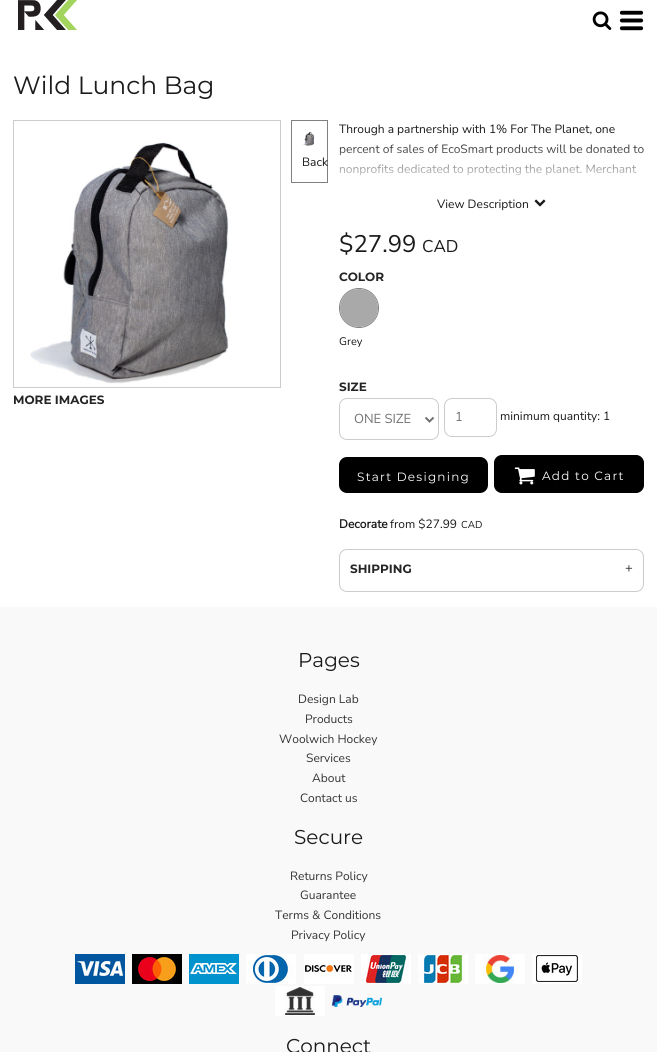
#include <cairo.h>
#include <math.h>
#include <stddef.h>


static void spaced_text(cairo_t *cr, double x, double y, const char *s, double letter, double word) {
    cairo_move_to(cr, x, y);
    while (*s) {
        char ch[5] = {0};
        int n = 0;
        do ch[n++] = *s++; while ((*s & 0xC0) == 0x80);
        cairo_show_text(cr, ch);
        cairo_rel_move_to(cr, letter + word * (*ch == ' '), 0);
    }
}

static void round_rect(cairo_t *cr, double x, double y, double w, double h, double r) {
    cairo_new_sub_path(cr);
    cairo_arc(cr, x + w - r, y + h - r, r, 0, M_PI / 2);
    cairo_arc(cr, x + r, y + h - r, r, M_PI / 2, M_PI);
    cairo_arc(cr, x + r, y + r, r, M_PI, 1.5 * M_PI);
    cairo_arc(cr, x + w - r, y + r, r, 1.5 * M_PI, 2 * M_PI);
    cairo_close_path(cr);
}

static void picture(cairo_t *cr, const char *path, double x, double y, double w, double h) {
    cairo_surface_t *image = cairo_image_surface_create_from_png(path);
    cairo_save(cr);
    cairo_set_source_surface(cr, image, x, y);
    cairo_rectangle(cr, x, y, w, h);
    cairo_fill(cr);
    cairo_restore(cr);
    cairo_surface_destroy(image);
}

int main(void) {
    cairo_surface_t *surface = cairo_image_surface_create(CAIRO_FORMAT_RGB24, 657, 1052);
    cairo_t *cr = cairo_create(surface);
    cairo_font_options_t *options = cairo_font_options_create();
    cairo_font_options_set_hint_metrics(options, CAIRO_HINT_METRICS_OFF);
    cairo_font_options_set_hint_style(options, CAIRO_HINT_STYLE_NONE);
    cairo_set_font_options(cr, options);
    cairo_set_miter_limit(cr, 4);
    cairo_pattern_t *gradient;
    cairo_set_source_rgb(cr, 1, 1, 1);
    cairo_paint(cr);
    picture(cr, "img1.png", 18, 0, 59, 30);
    picture(cr, "img2.png", 592, 11, 20, 19);
    picture(cr, "img3.png", 619, 10, 25, 21);
    cairo_select_font_face(cr, "Montserrat", CAIRO_FONT_SLANT_NORMAL, CAIRO_FONT_WEIGHT_NORMAL);
    cairo_set_font_size(cr, 25);
    cairo_set_source_rgb(cr, 0.11, 0.106, 0.106);
    cairo_move_to(cr, 13, 94);
    cairo_show_text(cr, "Wild Lunch Bag");
    cairo_rectangle(cr, 13.5, 120.5, 267, 267);
    cairo_set_source_rgb(cr, 0.8, 0.8, 0.8);
    cairo_set_line_width(cr, 1);
    cairo_stroke(cr);
    picture(cr, "img4.png", 30, 142, 199, 242);
    cairo_rectangle(cr, 291.5, 120.5, 36, 62);
    cairo_set_source_rgb(cr, 0.502, 0.502, 0.502);
    cairo_stroke(cr);
    picture(cr, "img5.png", 303, 132, 12, 14);
    cairo_select_font_face(cr, "Nunito Sans ExtraLight", CAIRO_FONT_SLANT_NORMAL, CAIRO_FONT_WEIGHT_NORMAL);
    cairo_set_font_size(cr, 12);
    cairo_set_source_rgb(cr, 0.11, 0.106, 0.106);
    cairo_move_to(cr, 302, 166);
    cairo_show_text(cr, "Back");
    cairo_select_font_face(cr, "Montserrat", CAIRO_FONT_SLANT_NORMAL, CAIRO_FONT_WEIGHT_BOLD);
    cairo_set_source_rgb(cr, 0.145, 0.145, 0.145);
    cairo_move_to(cr, 13, 404);
    cairo_show_text(cr, "MORE IMAGES");
    cairo_select_font_face(cr, "Nunito Sans ExtraLight", CAIRO_FONT_SLANT_NORMAL, CAIRO_FONT_WEIGHT_NORMAL);
    cairo_set_source_rgb(cr, 0.11, 0.106, 0.106);
    cairo_move_to(cr, 339, 133);
    cairo_show_text(cr, "Through a partnership with 1% For The Planet, one");
    cairo_move_to(cr, 339, 153);
    cairo_show_text(cr, "percent of sales of EcoSmart products will be donated to");
    cairo_move_to(cr, 339, 173);
    cairo_show_text(cr, "nonprofits dedicated to protecting the planet. Merchant");
    gradient = cairo_pattern_create_linear(492, 220, 492, 140);
    cairo_pattern_add_color_stop_rgba(gradient, 0, 1, 1, 1, 1);
    cairo_pattern_add_color_stop_rgba(gradient, 0.4, 1, 1, 1, 1);
    cairo_pattern_add_color_stop_rgba(gradient, 1, 1, 1, 1, 0);
    cairo_set_source(cr, gradient);
    cairo_pattern_destroy(gradient);
    cairo_rectangle(cr, 339, 144, 305, 32);
    cairo_fill(cr);
    cairo_set_source_rgb(cr, 0.11, 0.106, 0.106);
    cairo_move_to(cr, 437, 208);
    cairo_show_text(cr, "View Description");
    picture(cr, "img6.png", 534, 199, 12, 8);
    cairo_set_font_size(cr, 24);
    cairo_move_to(cr, 339, 252);
    cairo_show_text(cr, "$27.99");
    cairo_set_font_size(cr, 17);
    cairo_move_to(cr, 422, 252);
    cairo_show_text(cr, "CAD");
    cairo_select_font_face(cr, "Montserrat", CAIRO_FONT_SLANT_NORMAL, CAIRO_FONT_WEIGHT_BOLD);
    cairo_set_font_size(cr, 12);
    cairo_set_source_rgb(cr, 0.145, 0.145, 0.145);
    cairo_move_to(cr, 339, 281);
    cairo_show_text(cr, "COLOR");
    cairo_new_path(cr);
    cairo_arc(cr, 359, 308, 19.5, 0, 2 * M_PI);
    cairo_set_source_rgb(cr, 0.502, 0.502, 0.502);
    cairo_stroke(cr);
    cairo_set_source_rgb(cr, 0.663, 0.663, 0.663);
    cairo_arc(cr, 359, 308, 19, 0, 2 * M_PI);
    cairo_fill(cr);
    cairo_select_font_face(cr, "Nunito Sans ExtraLight", CAIRO_FONT_SLANT_NORMAL, CAIRO_FONT_WEIGHT_NORMAL);
    cairo_set_font_size(cr, 11);
    cairo_set_source_rgb(cr, 0.11, 0.106, 0.106);
    cairo_move_to(cr, 339, 345);
    cairo_show_text(cr, "Grey");
    cairo_select_font_face(cr, "Montserrat", CAIRO_FONT_SLANT_NORMAL, CAIRO_FONT_WEIGHT_BOLD);
    cairo_set_font_size(cr, 12);
    cairo_set_source_rgb(cr, 0.145, 0.145, 0.145);
    cairo_move_to(cr, 339, 391);
    cairo_show_text(cr, "SIZE");
    round_rect(cr, 339.5, 398.5, 99, 41, 7.5);
    cairo_set_source_rgb(cr, 0.8, 0.8, 0.8);
    cairo_stroke(cr);
    cairo_new_path(cr);
    cairo_move_to(cr, 425.5, 417.5);
    cairo_line_to(cr, 429.5, 421.5);
    cairo_line_to(cr, 433.5, 417.5);
    cairo_set_source_rgb(cr, 0.443, 0.443, 0.443);
    cairo_set_line_width(cr, 2);
    cairo_stroke(cr);
    cairo_select_font_face(cr, "Nunito Sans ExtraLight", CAIRO_FONT_SLANT_NORMAL, CAIRO_FONT_WEIGHT_NORMAL);
    cairo_set_font_size(cr, 13);
    cairo_move_to(cr, 354, 423);
    cairo_show_text(cr, "ONE SIZE");
    round_rect(cr, 444.5, 398.5, 52, 38, 7.5);
    cairo_set_source_rgb(cr, 0.8, 0.8, 0.8);
    cairo_set_line_width(cr, 1);
    cairo_stroke(cr);
    cairo_set_source_rgb(cr, 0.443, 0.443, 0.443);
    cairo_move_to(cr, 455, 421);
    cairo_show_text(cr, "1");
    cairo_set_font_size(cr, 12);
    cairo_set_source_rgb(cr, 0.11, 0.106, 0.106);
    cairo_move_to(cr, 500, 420);
    cairo_show_text(cr, "minimum quantity: 1");
    cairo_set_source_rgb(cr, 0, 0, 0);
    round_rect(cr, 339, 457, 149, 36, 8);
    cairo_fill(cr);
    cairo_select_font_face(cr, "Montserrat", CAIRO_FONT_SLANT_NORMAL, CAIRO_FONT_WEIGHT_NORMAL);
    cairo_set_source_rgb(cr, 1, 1, 1);
    spaced_text(cr, 357, 481, "Start Designing", 1.25, 0);
    cairo_set_source_rgb(cr, 0, 0, 0);
    round_rect(cr, 494.5, 455.5, 149, 37, 7.5);
    cairo_fill_preserve(cr);
    cairo_stroke(cr);
    picture(cr, "img7.png", 514, 467, 21, 18);
    cairo_set_source_rgb(cr, 1, 1, 1);
    spaced_text(cr, 542, 480, "Add to Cart", 1.25, 0);
    cairo_select_font_face(cr, "Nunito Sans", CAIRO_FONT_SLANT_NORMAL, CAIRO_FONT_WEIGHT_BOLD);
    cairo_set_source_rgb(cr, 0.11, 0.106, 0.106);
    cairo_move_to(cr, 339, 528);
    cairo_show_text(cr, "Decorate");
    cairo_select_font_face(cr, "Nunito Sans ExtraLight", CAIRO_FONT_SLANT_NORMAL, CAIRO_FONT_WEIGHT_NORMAL);
    cairo_move_to(cr, 390, 528);
    cairo_show_text(cr, "from $27.99");
    cairo_set_font_size(cr, 10);
    cairo_move_to(cr, 461, 528);
    cairo_show_text(cr, "CAD");
    round_rect(cr, 339.5, 549.5, 304, 42, 7.5);
    cairo_set_source_rgb(cr, 0.8, 0.8, 0.8);
    cairo_stroke(cr);
    cairo_select_font_face(cr, "Montserrat", CAIRO_FONT_SLANT_NORMAL, CAIRO_FONT_WEIGHT_BOLD);
    cairo_set_font_size(cr, 12);
    cairo_set_source_rgb(cr, 0.145, 0.145, 0.145);
    cairo_move_to(cr, 350, 573);
    cairo_show_text(cr, "SHIPPING");
    cairo_select_font_face(cr, "Nunito Sans ExtraLight", CAIRO_FONT_SLANT_NORMAL, CAIRO_FONT_WEIGHT_NORMAL);
    cairo_set_font_size(cr, 13);
    cairo_move_to(cr, 625, 572);
    cairo_show_text(cr, "+");
    cairo_set_source_rgb(cr, 0.976, 0.976, 0.976);
    cairo_rectangle(cr, 0, 607, 657, 445);
    cairo_fill(cr);
    cairo_select_font_face(cr, "Montserrat", CAIRO_FONT_SLANT_NORMAL, CAIRO_FONT_WEIGHT_NORMAL);
    cairo_set_font_size(cr, 20);
    cairo_set_source_rgb(cr, 0.11, 0.106, 0.106);
    cairo_move_to(cr, 298, 667);
    cairo_show_text(cr, "Pages");
    cairo_select_font_face(cr, "Nunito Sans ExtraLight", CAIRO_FONT_SLANT_NORMAL, CAIRO_FONT_WEIGHT_NORMAL);
    cairo_set_font_size(cr, 12);
    cairo_set_source_rgb(cr, 0.212, 0.204, 0.204);
    cairo_move_to(cr, 298, 703);
    cairo_show_text(cr, "Design Lab");
    cairo_move_to(cr, 305, 723);
    cairo_show_text(cr, "Products");
    cairo_move_to(cr, 279, 743);
    cairo_show_text(cr, "Woolwich Hockey");
    cairo_move_to(cr, 306, 762);
    cairo_show_text(cr, "Services");
    cairo_move_to(cr, 312, 782);
    cairo_show_text(cr, "About");
    cairo_move_to(cr, 300, 802);
    cairo_show_text(cr, "Contact us");
    cairo_select_font_face(cr, "Montserrat", CAIRO_FONT_SLANT_NORMAL, CAIRO_FONT_WEIGHT_NORMAL);
    cairo_set_font_size(cr, 20);
    cairo_set_source_rgb(cr, 0.11, 0.106, 0.106);
    cairo_move_to(cr, 294, 844);
    cairo_show_text(cr, "Secure");
    cairo_select_font_face(cr, "Nunito Sans ExtraLight", CAIRO_FONT_SLANT_NORMAL, CAIRO_FONT_WEIGHT_NORMAL);
    cairo_set_font_size(cr, 12);
    cairo_set_source_rgb(cr, 0.212, 0.204, 0.204);
    cairo_move_to(cr, 290, 880);
    cairo_show_text(cr, "Returns Policy");
    cairo_move_to(cr, 300, 899);
    cairo_show_text(cr, "Guarantee");
    cairo_move_to(cr, 275, 919);
    cairo_show_text(cr, "Terms & Conditions");
    cairo_move_to(cr, 291, 939);
    cairo_show_text(cr, "Privacy Policy");
    picture(cr, "img8.png", 75, 954, 50, 30);
    picture(cr, "img9.png", 132, 954, 50, 30);
    picture(cr, "img10.png", 189, 954, 50, 30);
    picture(cr, "img11.png", 246, 954, 50, 30);
    picture(cr, "img12.png", 304, 954, 50, 30);
    picture(cr, "img13.png", 361, 954, 50, 30);
    picture(cr, "img14.png", 418, 954, 50, 30);
    picture(cr, "img15.png", 475, 954, 50, 30);
    picture(cr, "img16.png", 532, 954, 50, 30);
    picture(cr, "img17.png", 275, 986, 50, 30);
    picture(cr, "img18.png", 332, 995, 50, 12);
    cairo_select_font_face(cr, "Montserrat", CAIRO_FONT_SLANT_NORMAL, CAIRO_FONT_WEIGHT_NORMAL);
    cairo_set_font_size(cr, 20);
    cairo_set_source_rgb(cr, 0.11, 0.106, 0.106);
    cairo_move_to(cr, 286, 1053);
    cairo_show_text(cr, "Connect");
    cairo_surface_write_to_png(surface, "page.png");
    cairo_font_options_destroy(options);
    cairo_destroy(cr);
    cairo_surface_destroy(surface);
    return 0;
}
